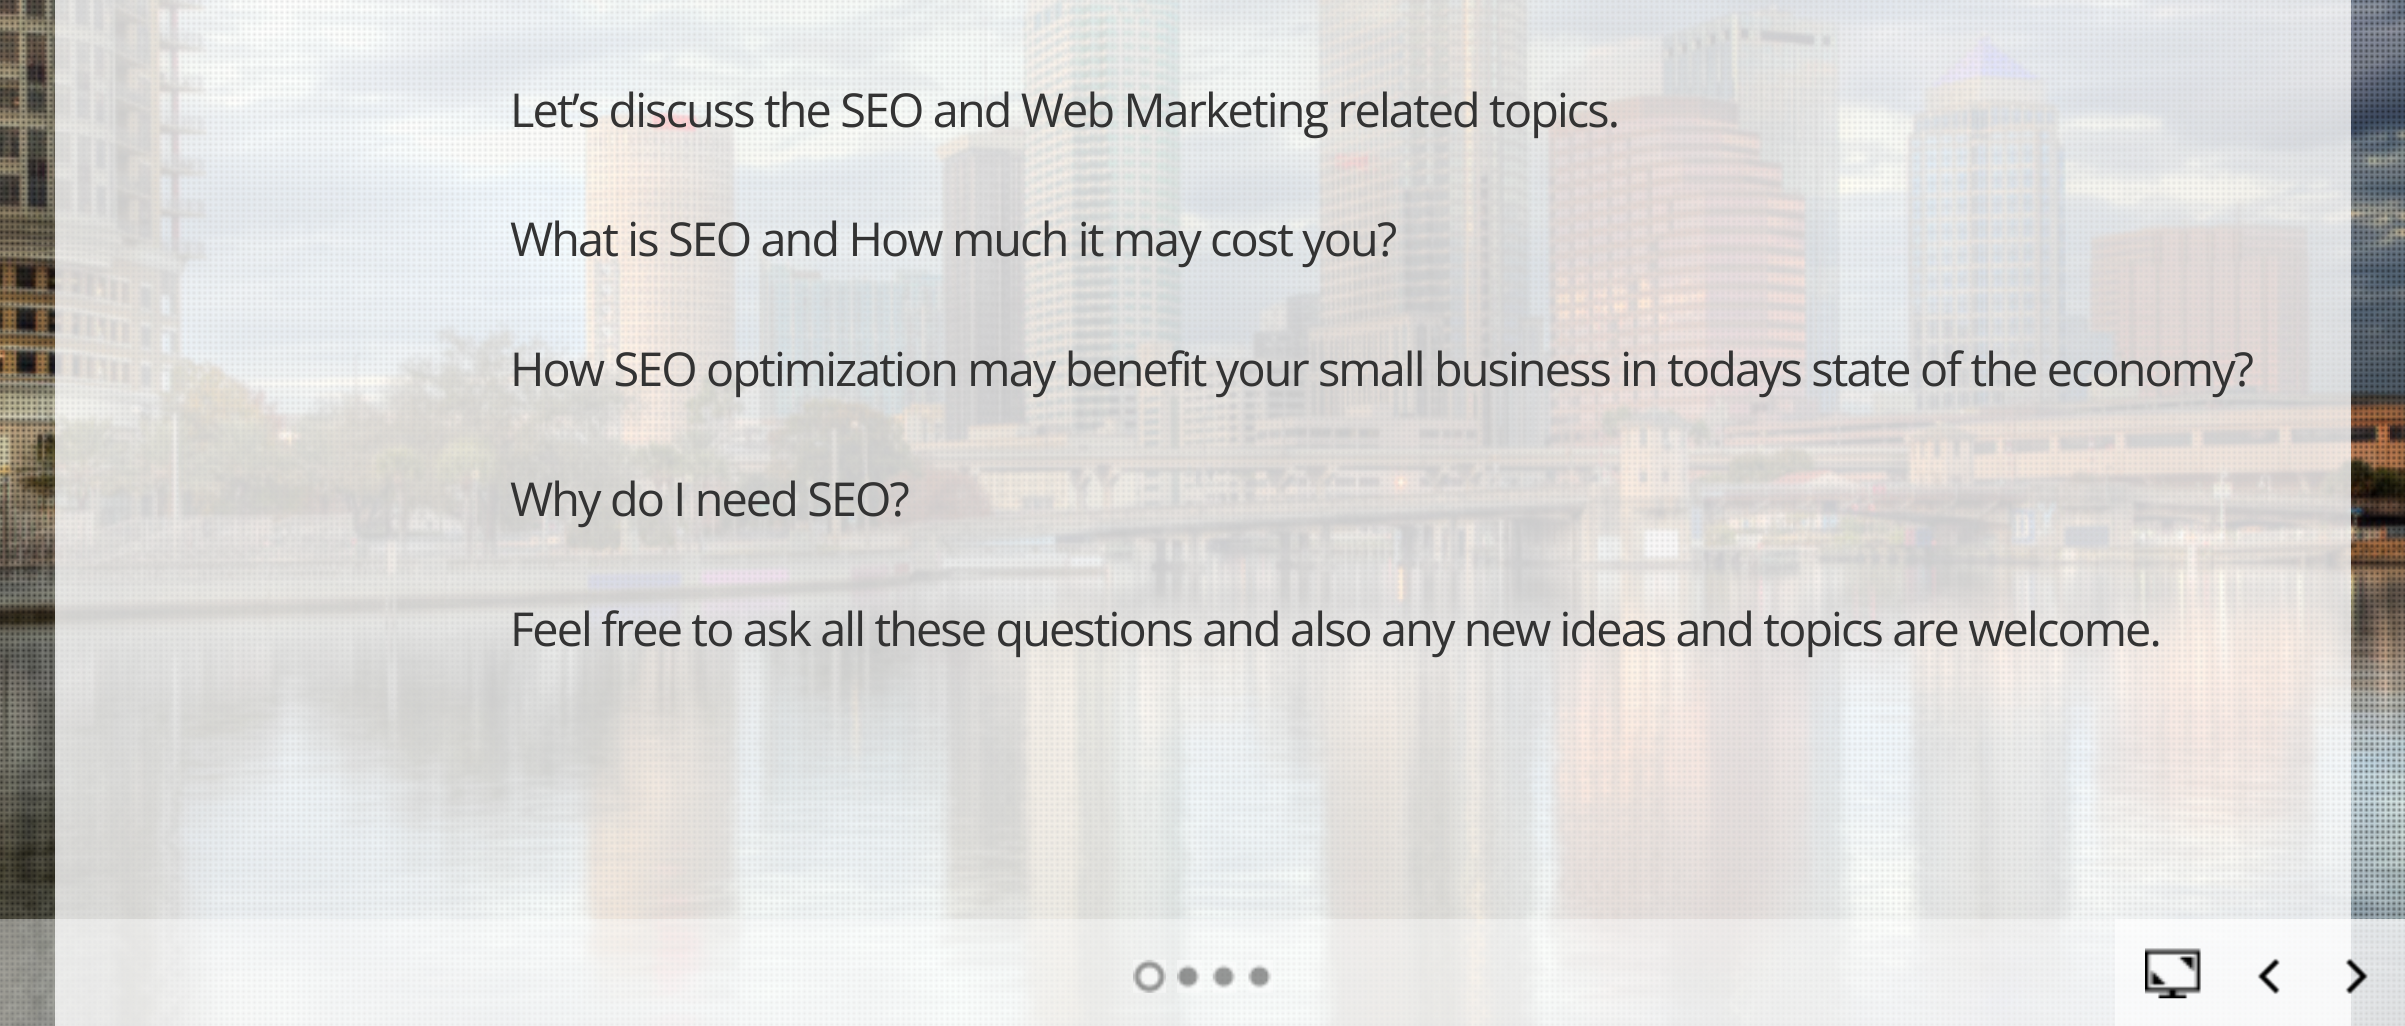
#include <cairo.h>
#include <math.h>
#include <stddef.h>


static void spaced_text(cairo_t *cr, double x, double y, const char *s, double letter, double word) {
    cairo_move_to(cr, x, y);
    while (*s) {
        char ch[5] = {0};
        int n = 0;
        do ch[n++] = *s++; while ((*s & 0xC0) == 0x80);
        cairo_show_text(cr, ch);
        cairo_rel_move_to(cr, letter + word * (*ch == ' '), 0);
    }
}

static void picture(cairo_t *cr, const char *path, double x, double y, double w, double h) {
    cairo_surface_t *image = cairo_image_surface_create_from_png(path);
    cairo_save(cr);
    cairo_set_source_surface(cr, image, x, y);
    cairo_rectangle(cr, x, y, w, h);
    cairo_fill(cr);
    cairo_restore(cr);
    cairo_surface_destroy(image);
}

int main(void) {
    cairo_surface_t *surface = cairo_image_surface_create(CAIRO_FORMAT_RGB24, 2405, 1026);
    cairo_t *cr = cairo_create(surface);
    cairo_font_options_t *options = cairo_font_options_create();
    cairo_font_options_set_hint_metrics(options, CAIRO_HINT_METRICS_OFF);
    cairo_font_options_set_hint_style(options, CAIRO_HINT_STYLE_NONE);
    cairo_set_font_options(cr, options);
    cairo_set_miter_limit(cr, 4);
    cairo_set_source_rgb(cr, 1, 1, 1);
    cairo_paint(cr);
    picture(cr, "img1.png", 0, 0, 2405, 1026);
    picture(cr, "img2.png", 0, 0, 2405, 1026);
    cairo_select_font_face(cr, "Open Sans", CAIRO_FONT_SLANT_NORMAL, CAIRO_FONT_WEIGHT_NORMAL);
    cairo_set_font_size(cr, 46.75);
    cairo_set_source_rgb(cr, 0.2, 0.2, 0.2);
    spaced_text(cr, 510, 127, "Let’s discuss the SEO and Web Marketing related topics.", -1.87, 0);
    spaced_text(cr, 510, 256, "What is SEO and How much it may cost you?", -1.87, 0);
    spaced_text(cr, 510, 386, "How SEO optimization may benefit your small business in todays state of the economy?", -1.87, 0);
    spaced_text(cr, 510, 516, "Why do I need SEO?", -1.87, 0);
    spaced_text(cr, 510, 646, "Feel free to ask all these questions and also any new ideas and topics are welcome.", -1.87, 0);
    cairo_set_source_rgba(cr, 1, 1, 1, 0.4);
    cairo_rectangle(cr, 0, 919, 2405, 107);
    cairo_fill(cr);
    picture(cr, "img3.png", 1133, 959, 33, 34);
    picture(cr, "img4.png", 1177, 960, 25, 33);
    picture(cr, "img5.png", 1212, 962, 24, 31);
    picture(cr, "img6.png", 1248, 960, 25, 33);
    cairo_set_source_rgba(cr, 1, 1, 1, 0.6);
    cairo_rectangle(cr, 2115, 919, 290, 107);
    cairo_fill(cr);
    picture(cr, "img7.png", 2145, 948, 56, 51);
    picture(cr, "img8.png", 2257, 958, 23, 37);
    picture(cr, "img9.png", 2345, 958, 23, 36);
    cairo_surface_write_to_png(surface, "page.png");
    cairo_font_options_destroy(options);
    cairo_destroy(cr);
    cairo_surface_destroy(surface);
    return 0;
}
